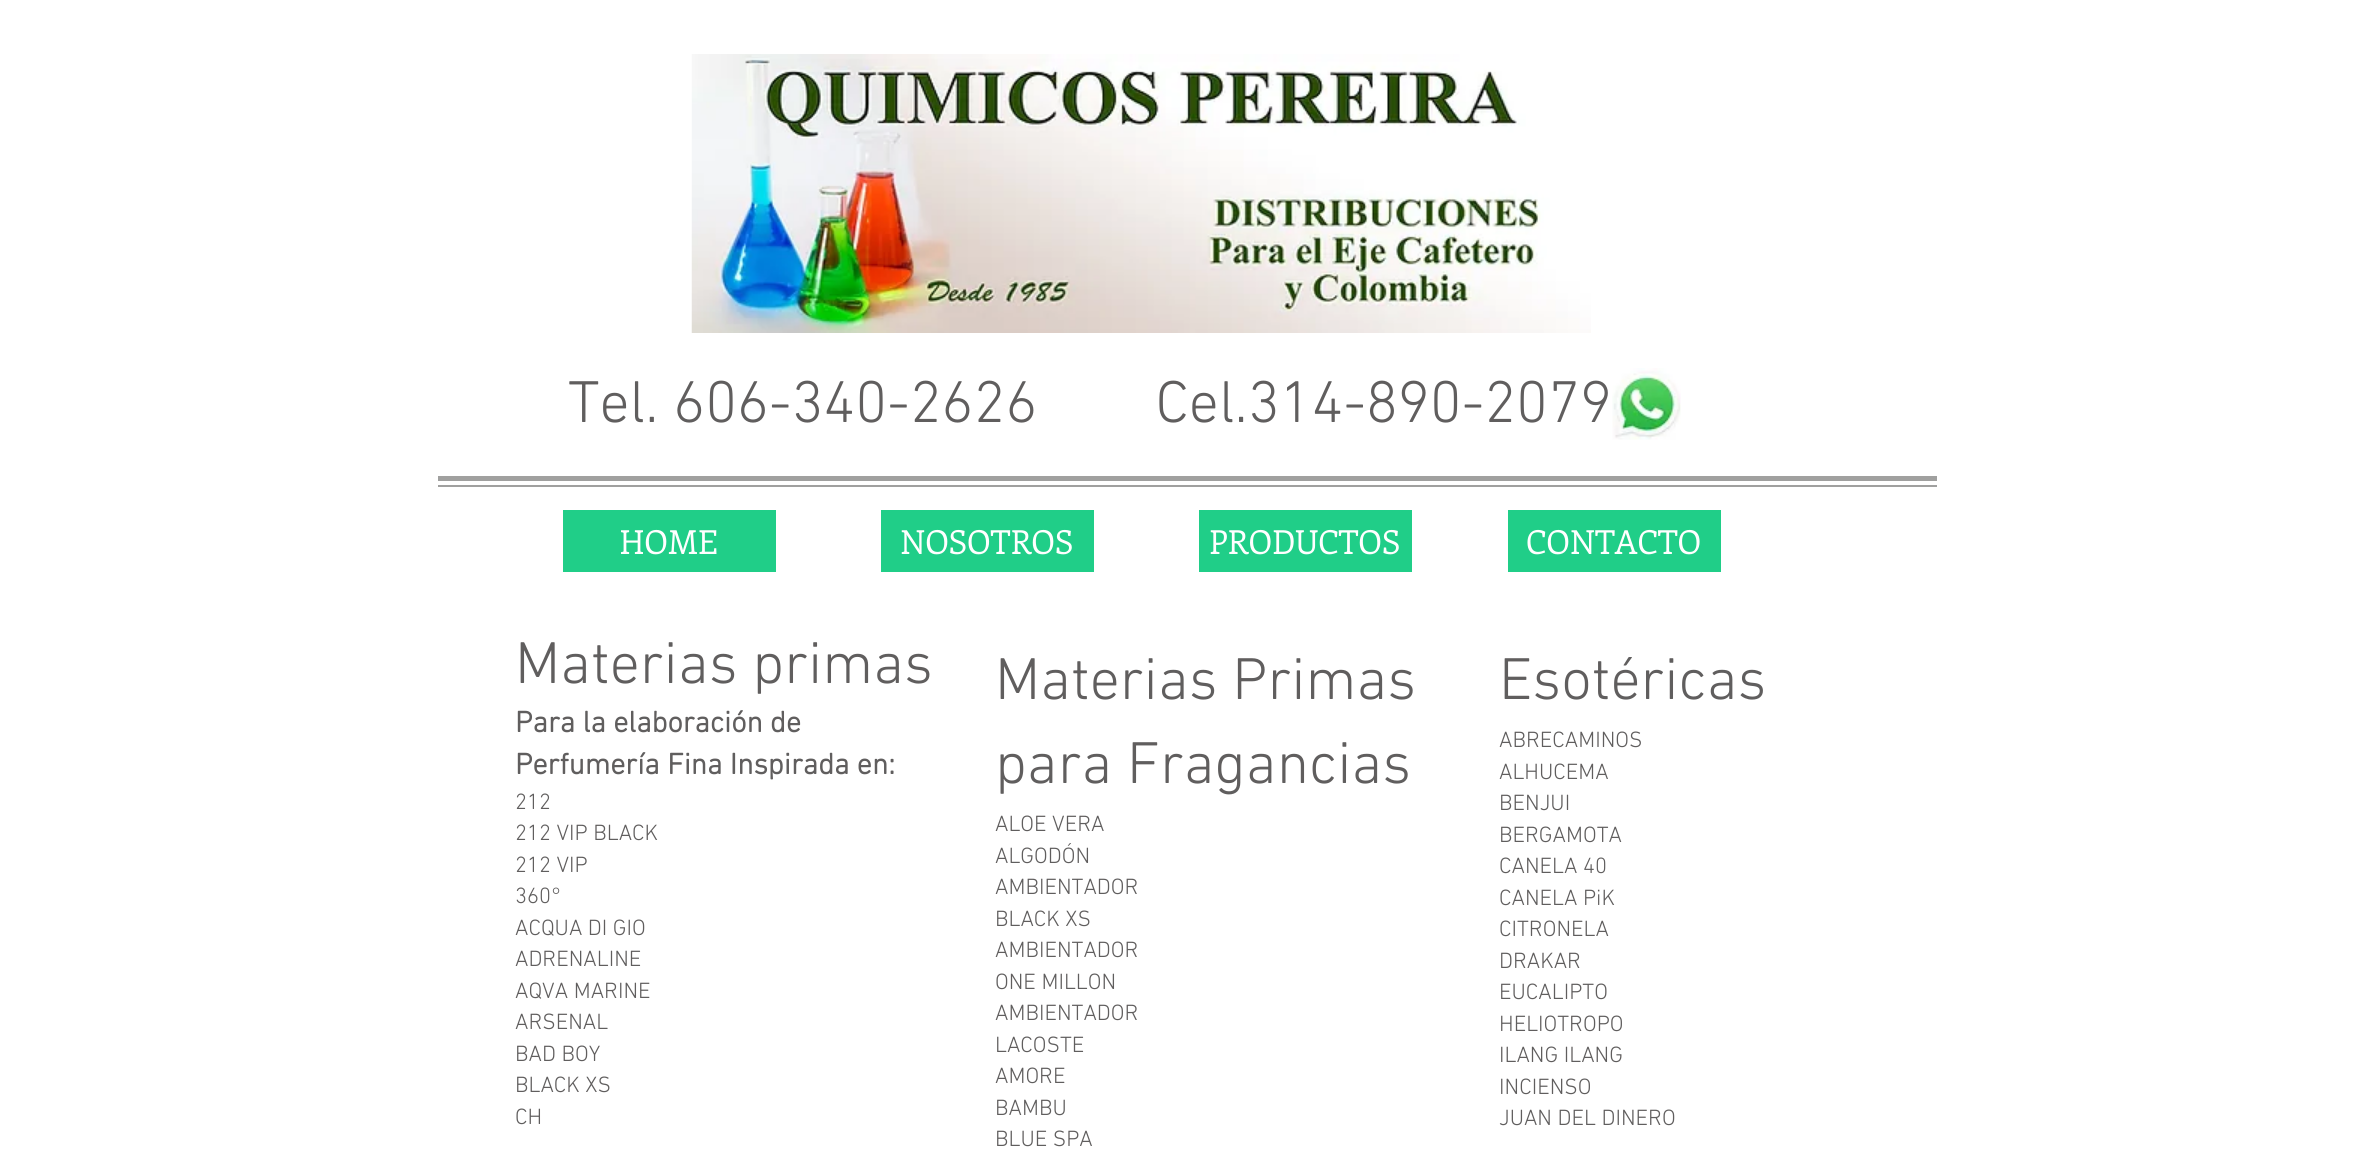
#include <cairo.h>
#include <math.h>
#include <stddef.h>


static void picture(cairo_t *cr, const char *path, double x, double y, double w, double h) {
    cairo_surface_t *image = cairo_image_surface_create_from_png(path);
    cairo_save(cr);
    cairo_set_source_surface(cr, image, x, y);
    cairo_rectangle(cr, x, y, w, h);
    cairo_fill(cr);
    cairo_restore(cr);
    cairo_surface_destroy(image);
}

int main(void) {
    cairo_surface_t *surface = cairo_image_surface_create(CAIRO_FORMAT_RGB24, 2372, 1150);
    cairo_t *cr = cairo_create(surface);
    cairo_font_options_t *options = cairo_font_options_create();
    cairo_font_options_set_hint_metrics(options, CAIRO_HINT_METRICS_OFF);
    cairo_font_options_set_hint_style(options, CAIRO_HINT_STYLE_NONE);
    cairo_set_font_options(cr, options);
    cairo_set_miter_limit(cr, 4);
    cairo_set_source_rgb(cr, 1, 1, 1);
    cairo_paint(cr);
    picture(cr, "img1.png", 691, 54, 900, 279);
    cairo_select_font_face(cr, "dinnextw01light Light", CAIRO_FONT_SLANT_NORMAL, CAIRO_FONT_WEIGHT_NORMAL);
    cairo_set_font_size(cr, 60);
    cairo_set_source_rgb(cr, 0.376, 0.369, 0.369);
    cairo_move_to(cr, 568, 422);
    cairo_show_text(cr, "Tel. 606-340-2626        Cel.314-890-2079");
    picture(cr, "img2.png", 1612, 368, 69, 72);
    cairo_set_source_rgb(cr, 0.627, 0.627, 0.624);
    cairo_rectangle(cr, 438, 476, 1499, 5);
    cairo_fill(cr);
    cairo_rectangle(cr, 438, 485, 1499, 2);
    cairo_fill(cr);
    cairo_set_source_rgb(cr, 0.125, 0.808, 0.533);
    cairo_rectangle(cr, 563, 510, 213, 62);
    cairo_fill(cr);
    cairo_select_font_face(cr, "Enriqueta", CAIRO_FONT_SLANT_NORMAL, CAIRO_FONT_WEIGHT_NORMAL);
    cairo_set_font_size(cr, 33);
    cairo_set_source_rgb(cr, 1, 1, 1);
    cairo_move_to(cr, 620, 554);
    cairo_show_text(cr, "HOME");
    cairo_set_source_rgb(cr, 0.125, 0.808, 0.533);
    cairo_rectangle(cr, 881, 510, 213, 62);
    cairo_fill(cr);
    cairo_set_source_rgb(cr, 1, 1, 1);
    cairo_move_to(cr, 900, 554);
    cairo_show_text(cr, "NOSOTROS");
    cairo_set_source_rgb(cr, 0.125, 0.808, 0.533);
    cairo_rectangle(cr, 1199, 510, 213, 62);
    cairo_fill(cr);
    cairo_set_source_rgb(cr, 1, 1, 1);
    cairo_move_to(cr, 1209, 554);
    cairo_show_text(cr, "PRODUCTOS");
    cairo_set_source_rgb(cr, 0.125, 0.808, 0.533);
    cairo_rectangle(cr, 1508, 510, 213, 62);
    cairo_fill(cr);
    cairo_set_source_rgb(cr, 1, 1, 1);
    cairo_move_to(cr, 1526, 554);
    cairo_show_text(cr, "CONTACTO");
    cairo_select_font_face(cr, "dinnextw01light Light", CAIRO_FONT_SLANT_NORMAL, CAIRO_FONT_WEIGHT_NORMAL);
    cairo_set_font_size(cr, 60);
    cairo_set_source_rgb(cr, 0.376, 0.369, 0.369);
    cairo_move_to(cr, 515, 683);
    cairo_show_text(cr, "Materias primas");
    cairo_select_font_face(cr, "dinnextw01light", CAIRO_FONT_SLANT_NORMAL, CAIRO_FONT_WEIGHT_BOLD);
    cairo_set_font_size(cr, 30);
    cairo_move_to(cr, 515, 732);
    cairo_show_text(cr, "Para la elaboración de");
    cairo_move_to(cr, 515, 774);
    cairo_show_text(cr, "Perfumería Fina Inspirada en:");
    cairo_select_font_face(cr, "dinnextw01light Light", CAIRO_FONT_SLANT_NORMAL, CAIRO_FONT_WEIGHT_NORMAL);
    cairo_set_font_size(cr, 22.5);
    cairo_move_to(cr, 515, 809);
    cairo_show_text(cr, "212");
    cairo_move_to(cr, 515, 840);
    cairo_show_text(cr, "212 VIP BLACK");
    cairo_move_to(cr, 515, 872);
    cairo_show_text(cr, "212 VIP");
    cairo_move_to(cr, 515, 903);
    cairo_show_text(cr, "360°");
    cairo_move_to(cr, 515, 935);
    cairo_show_text(cr, "ACQUA DI GIO");
    cairo_move_to(cr, 515, 966);
    cairo_show_text(cr, "ADRENALINE");
    cairo_move_to(cr, 515, 998);
    cairo_show_text(cr, "AQVA MARINE");
    cairo_move_to(cr, 515, 1029);
    cairo_show_text(cr, "ARSENAL");
    cairo_move_to(cr, 515, 1061);
    cairo_show_text(cr, "BAD BOY");
    cairo_move_to(cr, 515, 1092);
    cairo_show_text(cr, "BLACK XS");
    cairo_move_to(cr, 515, 1124);
    cairo_show_text(cr, "CH");
    cairo_set_font_size(cr, 60);
    cairo_move_to(cr, 995, 699);
    cairo_show_text(cr, "Materias Primas");
    cairo_move_to(cr, 995, 783);
    cairo_show_text(cr, "para Fragancias");
    cairo_set_font_size(cr, 22.5);
    cairo_move_to(cr, 995, 831);
    cairo_show_text(cr, "ALOE VERA");
    cairo_move_to(cr, 995, 863);
    cairo_show_text(cr, "ALGODÓN");
    cairo_move_to(cr, 995, 894);
    cairo_show_text(cr, "AMBIENTADOR");
    cairo_move_to(cr, 995, 926);
    cairo_show_text(cr, "BLACK XS");
    cairo_move_to(cr, 995, 957);
    cairo_show_text(cr, "AMBIENTADOR");
    cairo_move_to(cr, 995, 989);
    cairo_show_text(cr, "ONE MILLON");
    cairo_move_to(cr, 995, 1020);
    cairo_show_text(cr, "AMBIENTADOR");
    cairo_move_to(cr, 995, 1052);
    cairo_show_text(cr, "LACOSTE");
    cairo_move_to(cr, 995, 1083);
    cairo_show_text(cr, "AMORE");
    cairo_move_to(cr, 995, 1115);
    cairo_show_text(cr, "BAMBU");
    cairo_move_to(cr, 995, 1146);
    cairo_show_text(cr, "BLUE SPA");
    cairo_set_font_size(cr, 60);
    cairo_move_to(cr, 1499, 699);
    cairo_show_text(cr, "Esotéricas");
    cairo_set_font_size(cr, 22.5);
    cairo_move_to(cr, 1499, 747);
    cairo_show_text(cr, "ABRECAMINOS");
    cairo_move_to(cr, 1499, 779);
    cairo_show_text(cr, "ALHUCEMA");
    cairo_move_to(cr, 1499, 810);
    cairo_show_text(cr, "BENJUI");
    cairo_move_to(cr, 1499, 842);
    cairo_show_text(cr, "BERGAMOTA");
    cairo_move_to(cr, 1499, 873);
    cairo_show_text(cr, "CANELA 40");
    cairo_move_to(cr, 1499, 905);
    cairo_show_text(cr, "CANELA PiK");
    cairo_move_to(cr, 1499, 936);
    cairo_show_text(cr, "CITRONELA");
    cairo_move_to(cr, 1499, 968);
    cairo_show_text(cr, "DRAKAR");
    cairo_move_to(cr, 1499, 999);
    cairo_show_text(cr, "EUCALIPTO");
    cairo_move_to(cr, 1499, 1031);
    cairo_show_text(cr, "HELIOTROPO");
    cairo_move_to(cr, 1499, 1062);
    cairo_show_text(cr, "ILANG ILANG");
    cairo_move_to(cr, 1499, 1094);
    cairo_show_text(cr, "INCIENSO");
    cairo_move_to(cr, 1499, 1125);
    cairo_show_text(cr, "JUAN DEL DINERO");
    cairo_surface_write_to_png(surface, "page.png");
    cairo_font_options_destroy(options);
    cairo_destroy(cr);
    cairo_surface_destroy(surface);
    return 0;
}
